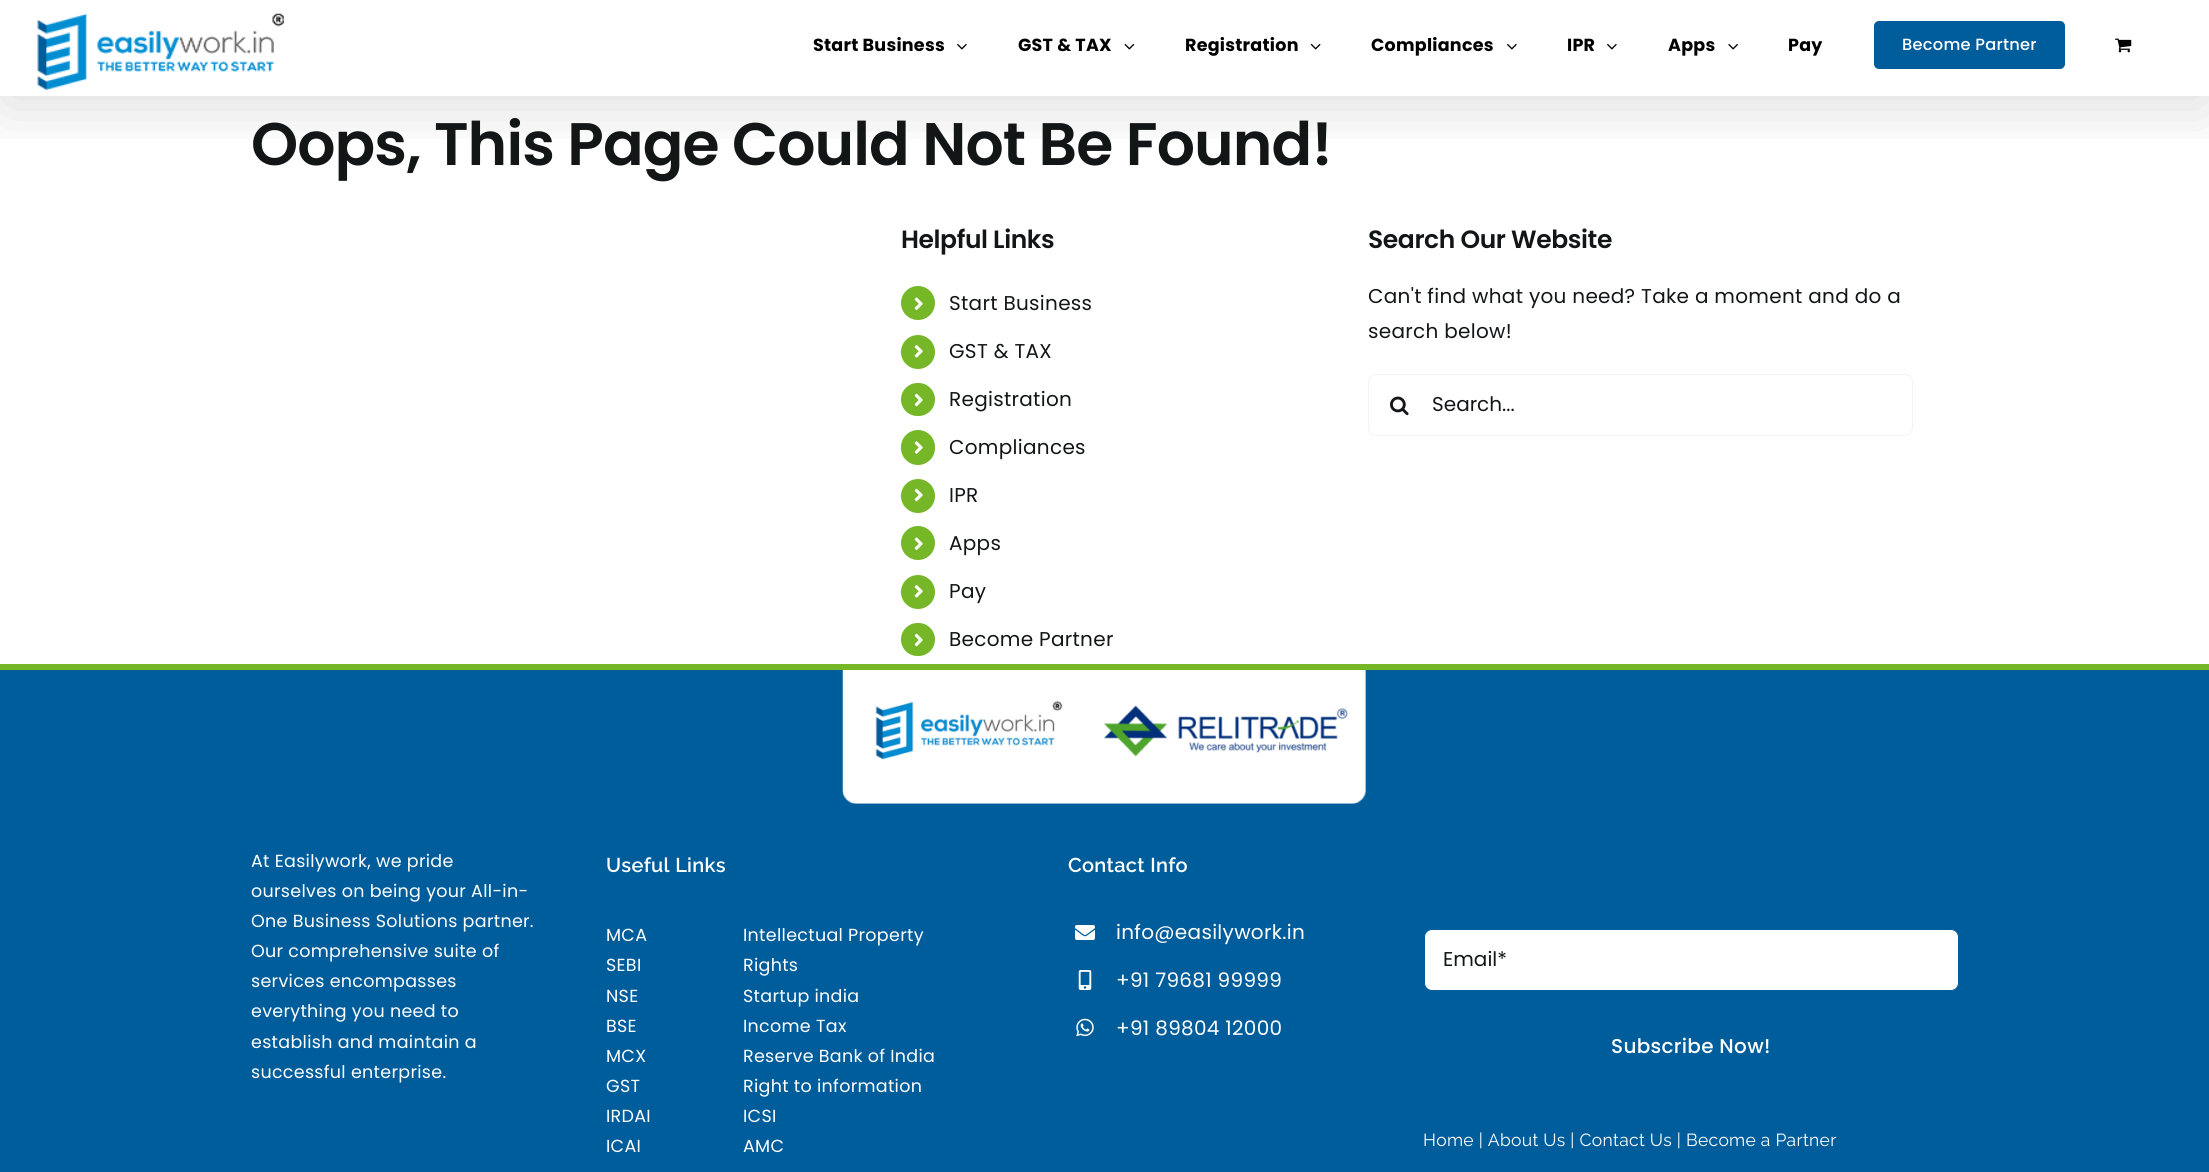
#include <cairo.h>
#include <math.h>
#include <stddef.h>


static void spaced_text(cairo_t *cr, double x, double y, const char *s, double letter, double word) {
    cairo_move_to(cr, x, y);
    while (*s) {
        char ch[5] = {0};
        int n = 0;
        do ch[n++] = *s++; while ((*s & 0xC0) == 0x80);
        cairo_show_text(cr, ch);
        cairo_rel_move_to(cr, letter + word * (*ch == ' '), 0);
    }
}

static void round_rect(cairo_t *cr, double x, double y, double w, double h, double r) {
    cairo_new_sub_path(cr);
    cairo_arc(cr, x + w - r, y + h - r, r, 0, M_PI / 2);
    cairo_arc(cr, x + r, y + h - r, r, M_PI / 2, M_PI);
    cairo_arc(cr, x + r, y + r, r, M_PI, 1.5 * M_PI);
    cairo_arc(cr, x + w - r, y + r, r, 1.5 * M_PI, 2 * M_PI);
    cairo_close_path(cr);
}

static void shadow(cairo_t *cr, double x, double y, double w, double h, double r, double blur, double alpha) {
    cairo_push_group_with_content(cr, CAIRO_CONTENT_ALPHA);
    cairo_set_operator(cr, CAIRO_OPERATOR_SOURCE);
    for (int i = 15; i >= -15 && fmin(w, h) + blur * i / 3 > 0; i -= 2) {
        double e = blur * i / 6;
        cairo_set_source_rgba(cr, 0, 0, 0, alpha * erfc((i - 1) / 8.5) / 2);
        round_rect(cr, x - e, y - e, w + 2 * e, h + 2 * e, fmax(0, fmin(r + e + blur * .6, fmin(w, h) / 2 + e)));
        cairo_fill(cr);
    }
    cairo_pattern_t *soft = cairo_pop_group(cr);
    cairo_mask(cr, soft);
    cairo_pattern_destroy(soft);
}

static void picture(cairo_t *cr, const char *path, double x, double y, double w, double h) {
    cairo_surface_t *image = cairo_image_surface_create_from_png(path);
    cairo_save(cr);
    cairo_set_source_surface(cr, image, x, y);
    cairo_rectangle(cr, x, y, w, h);
    cairo_fill(cr);
    cairo_restore(cr);
    cairo_surface_destroy(image);
}

int main(void) {
    cairo_surface_t *surface = cairo_image_surface_create(CAIRO_FORMAT_RGB24, 2209, 1172);
    cairo_t *cr = cairo_create(surface);
    cairo_font_options_t *options = cairo_font_options_create();
    cairo_font_options_set_hint_metrics(options, CAIRO_HINT_METRICS_OFF);
    cairo_font_options_set_hint_style(options, CAIRO_HINT_STYLE_NONE);
    cairo_set_font_options(cr, options);
    cairo_set_miter_limit(cr, 4);
    cairo_set_source_rgb(cr, 1, 1, 1);
    cairo_paint(cr);
    cairo_save(cr);
    cairo_rectangle(cr, 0, 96, 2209, 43);
    cairo_clip(cr);
    cairo_set_source_rgb(cr, 0, 0, 0);
    shadow(cr, 3, 15, 2205, 91, 0, 31, 0.14);
    cairo_restore(cr);
    picture(cr, "img1.png", 37, 13, 247, 77);
    cairo_select_font_face(cr, "Poppins", CAIRO_FONT_SLANT_NORMAL, CAIRO_FONT_WEIGHT_BOLD);
    cairo_set_font_size(cr, 17.5);
    cairo_set_source_rgb(cr, 0, 0, 0);
    spaced_text(cr, 813, 51, "Start Business", 0.25, 0);
    picture(cr, "img2.png", 957, 43, 10, 7);
    spaced_text(cr, 1018, 51, "GST & TAX", 0.25, 0);
    picture(cr, "img3.png", 1124, 43, 11, 7);
    spaced_text(cr, 1185, 51, "Registration", 0.25, 0);
    picture(cr, "img4.png", 1310, 43, 11, 7);
    spaced_text(cr, 1371, 51, "Compliances", 0.25, 0);
    picture(cr, "img2.png", 1507, 43, 10, 7);
    spaced_text(cr, 1567, 51, "IPR", 0.25, 0);
    picture(cr, "img2.png", 1607, 43, 10, 7);
    spaced_text(cr, 1668, 51, "Apps", 0.25, 0);
    picture(cr, "img5.png", 1728, 43, 10, 7);
    spaced_text(cr, 1788, 51, "Pay", 0.25, 0);
    cairo_set_source_rgb(cr, 0, 0.365, 0.608);
    round_rect(cr, 1874, 21, 191, 48, 5);
    cairo_fill(cr);
    cairo_select_font_face(cr, "Poppins Medium", CAIRO_FONT_SLANT_NORMAL, CAIRO_FONT_WEIGHT_NORMAL);
    cairo_set_font_size(cr, 16.25);
    cairo_set_source_rgb(cr, 1, 1, 1);
    spaced_text(cr, 1902, 50, "Become Partner", 0.25, 0);
    picture(cr, "img6.png", 2115, 38, 17, 15);
    cairo_select_font_face(cr, "Poppins SemiBold", CAIRO_FONT_SLANT_NORMAL, CAIRO_FONT_WEIGHT_NORMAL);
    cairo_set_font_size(cr, 60);
    cairo_set_source_rgb(cr, 0.078, 0.086, 0.09);
    spaced_text(cr, 251, 165, "Oops, This Page Could Not Be Found!", -0.9, 0);
    cairo_set_font_size(cr, 25);
    spaced_text(cr, 901, 248, "Helpful Links", -0.4, 0);
    cairo_set_source_rgb(cr, 0.463, 0.718, 0.157);
    cairo_new_path(cr);
    cairo_arc(cr, 918, 303, 17, 0, 2 * M_PI);
    cairo_fill(cr);
    picture(cr, "img7.png", 914, 297, 9, 13);
    cairo_select_font_face(cr, "Poppins", CAIRO_FONT_SLANT_NORMAL, CAIRO_FONT_WEIGHT_NORMAL);
    cairo_set_font_size(cr, 20);
    cairo_set_source_rgb(cr, 0.078, 0.086, 0.09);
    spaced_text(cr, 949, 310, "Start Business", 0.3, 0);
    cairo_set_source_rgb(cr, 0.463, 0.718, 0.157);
    cairo_new_path(cr);
    cairo_arc(cr, 918, 352, 17, 0, 2 * M_PI);
    cairo_fill(cr);
    picture(cr, "img8.png", 914, 345, 9, 13);
    cairo_set_source_rgb(cr, 0.078, 0.086, 0.09);
    spaced_text(cr, 949, 358, "GST & TAX", 0.3, 0);
    cairo_set_source_rgb(cr, 0.463, 0.718, 0.157);
    round_rect(cr, 901, 383, 34, 33, 16.5);
    cairo_fill(cr);
    picture(cr, "img9.png", 914, 393, 9, 14);
    cairo_set_source_rgb(cr, 0.078, 0.086, 0.09);
    spaced_text(cr, 949, 406, "Registration", 0.3, 0);
    cairo_set_source_rgb(cr, 0.463, 0.718, 0.157);
    round_rect(cr, 901, 430, 34, 35, 17);
    cairo_fill(cr);
    picture(cr, "img10.png", 914, 441, 9, 13);
    cairo_set_source_rgb(cr, 0.078, 0.086, 0.09);
    spaced_text(cr, 949, 454, "Compliances", 0.3, 0);
    cairo_set_source_rgb(cr, 0.463, 0.718, 0.157);
    cairo_new_path(cr);
    cairo_arc(cr, 918, 496, 17, 0, 2 * M_PI);
    cairo_fill(cr);
    picture(cr, "img9.png", 914, 488, 9, 14);
    cairo_set_source_rgb(cr, 0.078, 0.086, 0.09);
    spaced_text(cr, 949, 502, "IPR", 0.3, 0);
    cairo_set_source_rgb(cr, 0.463, 0.718, 0.157);
    cairo_new_path(cr);
    cairo_arc(cr, 918, 543, 17, 0, 2 * M_PI);
    cairo_fill(cr);
    picture(cr, "img7.png", 914, 537, 9, 13);
    cairo_set_source_rgb(cr, 0.078, 0.086, 0.09);
    spaced_text(cr, 949, 550, "Apps", 0.3, 0);
    cairo_set_source_rgb(cr, 0.463, 0.718, 0.157);
    cairo_new_path(cr);
    cairo_arc(cr, 918, 592, 17, 0, 2 * M_PI);
    cairo_fill(cr);
    picture(cr, "img8.png", 914, 585, 9, 13);
    cairo_set_source_rgb(cr, 0.078, 0.086, 0.09);
    spaced_text(cr, 949, 598, "Pay", 0.3, 0);
    cairo_set_source_rgb(cr, 0.463, 0.718, 0.157);
    round_rect(cr, 901, 623, 34, 33, 16.5);
    cairo_fill(cr);
    picture(cr, "img9.png", 914, 633, 9, 14);
    cairo_set_source_rgb(cr, 0.078, 0.086, 0.09);
    spaced_text(cr, 949, 646, "Become Partner", 0.3, 0);
    cairo_select_font_face(cr, "Poppins SemiBold", CAIRO_FONT_SLANT_NORMAL, CAIRO_FONT_WEIGHT_NORMAL);
    cairo_set_font_size(cr, 25);
    spaced_text(cr, 1368, 248, "Search Our Website", -0.4, 0);
    cairo_select_font_face(cr, "Poppins", CAIRO_FONT_SLANT_NORMAL, CAIRO_FONT_WEIGHT_NORMAL);
    cairo_set_font_size(cr, 20);
    spaced_text(cr, 1368, 303, "Can't find what you need? Take a moment and do a", 0.3, 0);
    spaced_text(cr, 1368, 338, "search below!", 0.3, 0);
    round_rect(cr, 1368.5, 374.5, 544, 61, 7.5);
    cairo_set_source_rgb(cr, 0.949, 0.953, 0.961);
    cairo_set_line_width(cr, 1);
    cairo_stroke(cr);
    picture(cr, "img11.png", 1390, 396, 19, 20);
    cairo_set_source_rgb(cr, 0.078, 0.086, 0.09);
    cairo_move_to(cr, 1432, 411);
    cairo_show_text(cr, "Search...");
    cairo_set_source_rgb(cr, 0, 0.365, 0.608);
    cairo_rectangle(cr, 0, 670, 2209, 502);
    cairo_fill(cr);
    cairo_set_source_rgb(cr, 0.463, 0.718, 0.157);
    cairo_rectangle(cr, 0, 664, 2209, 6);
    cairo_fill(cr);
    picture(cr, "img12.png", 842, 670, 525, 134);
    cairo_set_font_size(cr, 17.5);
    cairo_set_source_rgb(cr, 1, 1, 1);
    spaced_text(cr, 251, 867, "At Easilywork, we pride", 0.3, 0);
    spaced_text(cr, 251, 897, "ourselves on being your All-in-", 0.3, 0);
    spaced_text(cr, 251, 927, "One Business Solutions partner.", 0.3, 0);
    spaced_text(cr, 251, 957, "Our comprehensive suite of", 0.3, 0);
    spaced_text(cr, 251, 987, "services encompasses", 0.3, 0);
    spaced_text(cr, 251, 1017, "everything you need to", 0.3, 0);
    spaced_text(cr, 251, 1048, "establish and maintain a", 0.3, 0);
    spaced_text(cr, 251, 1078, "successful enterprise.", 0.3, 0);
    cairo_select_font_face(cr, "Raleway SemiBold", CAIRO_FONT_SLANT_NORMAL, CAIRO_FONT_WEIGHT_NORMAL);
    cairo_set_font_size(cr, 20);
    spaced_text(cr, 606, 872, "Useful Links", 0.3, 0);
    cairo_select_font_face(cr, "Poppins", CAIRO_FONT_SLANT_NORMAL, CAIRO_FONT_WEIGHT_NORMAL);
    cairo_set_font_size(cr, 17.5);
    spaced_text(cr, 606, 941, "MCA", 0.3, 0);
    spaced_text(cr, 606, 971, "SEBI", 0.3, 0);
    spaced_text(cr, 606, 1002, "NSE", 0.3, 0);
    spaced_text(cr, 606, 1032, "BSE", 0.3, 0);
    spaced_text(cr, 606, 1062, "MCX", 0.3, 0);
    spaced_text(cr, 606, 1092, "GST", 0.3, 0);
    spaced_text(cr, 606, 1122, "IRDAI", 0.3, 0);
    spaced_text(cr, 606, 1152, "ICAI", 0.3, 0);
    spaced_text(cr, 743, 941, "Intellectual Property", 0.3, 0);
    spaced_text(cr, 743, 971, "Rights", 0.3, 0);
    spaced_text(cr, 743, 1002, "Startup india", 0.3, 0);
    spaced_text(cr, 743, 1032, "Income Tax", 0.3, 0);
    spaced_text(cr, 743, 1062, "Reserve Bank of India", 0.3, 0);
    spaced_text(cr, 743, 1092, "Right to information", 0.3, 0);
    spaced_text(cr, 743, 1122, "ICSI", 0.3, 0);
    spaced_text(cr, 743, 1152, "AMC", 0.3, 0);
    cairo_select_font_face(cr, "Raleway SemiBold", CAIRO_FONT_SLANT_NORMAL, CAIRO_FONT_WEIGHT_NORMAL);
    cairo_set_font_size(cr, 20);
    spaced_text(cr, 1068, 872, "Contact Info", 0.3, 0);
    picture(cr, "img13.png", 1075, 925, 20, 15);
    cairo_select_font_face(cr, "Poppins", CAIRO_FONT_SLANT_NORMAL, CAIRO_FONT_WEIGHT_NORMAL);
    spaced_text(cr, 1116, 939, "info@easilywork.in", 0.3, 0);
    picture(cr, "img14.png", 1078, 970, 14, 20);
    spaced_text(cr, 1116, 987, "+91 79681 99999", 0.3, 0);
    picture(cr, "img15.png", 1076, 1018, 18, 19);
    spaced_text(cr, 1116, 1035, "+91 89804 12000", 0.3, 0);
    round_rect(cr, 1424.5, 929.5, 534, 61, 7.5);
    cairo_fill_preserve(cr);
    cairo_set_source_rgb(cr, 0, 0.365, 0.608);
    cairo_stroke(cr);
    cairo_set_source_rgb(cr, 0.078, 0.086, 0.09);
    cairo_move_to(cr, 1443, 966);
    cairo_show_text(cr, "Email*");
    cairo_select_font_face(cr, "Poppins Medium", CAIRO_FONT_SLANT_NORMAL, CAIRO_FONT_WEIGHT_NORMAL);
    cairo_set_source_rgb(cr, 1, 1, 1);
    spaced_text(cr, 1611, 1053, "Subscribe Now!", 0.3, 0);
    cairo_select_font_face(cr, "Raleway", CAIRO_FONT_SLANT_NORMAL, CAIRO_FONT_WEIGHT_NORMAL);
    cairo_set_font_size(cr, 17.5);
    spaced_text(cr, 1423, 1146, "Home | About Us | Contact Us | Become a Partner", 0.3, 0);
    cairo_surface_write_to_png(surface, "page.png");
    cairo_font_options_destroy(options);
    cairo_destroy(cr);
    cairo_surface_destroy(surface);
    return 0;
}
